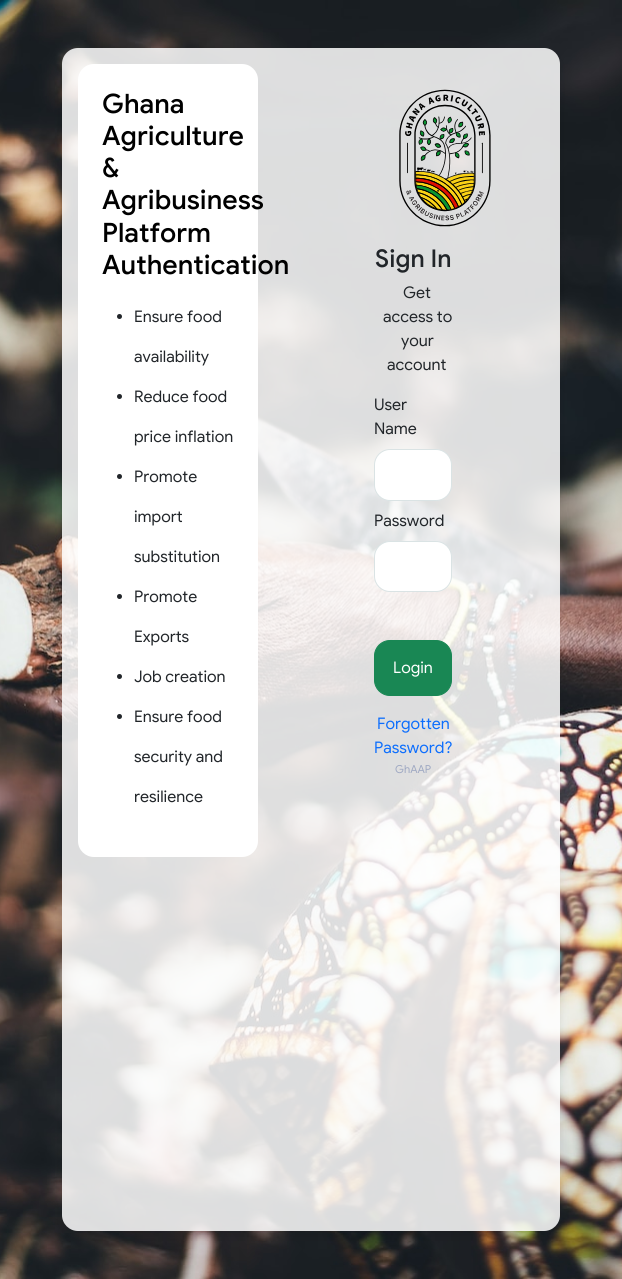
#include <cairo.h>
#include <math.h>
#include <stddef.h>


static void round_rect(cairo_t *cr, double x, double y, double w, double h, double r) {
    cairo_new_sub_path(cr);
    cairo_arc(cr, x + w - r, y + h - r, r, 0, M_PI / 2);
    cairo_arc(cr, x + r, y + h - r, r, M_PI / 2, M_PI);
    cairo_arc(cr, x + r, y + r, r, M_PI, 1.5 * M_PI);
    cairo_arc(cr, x + w - r, y + r, r, 1.5 * M_PI, 2 * M_PI);
    cairo_close_path(cr);
}

static void shadow(cairo_t *cr, double x, double y, double w, double h, double r, double blur, double alpha) {
    cairo_push_group_with_content(cr, CAIRO_CONTENT_ALPHA);
    cairo_set_operator(cr, CAIRO_OPERATOR_SOURCE);
    for (int i = 15; i >= -15 && fmin(w, h) + blur * i / 3 > 0; i -= 2) {
        double e = blur * i / 6;
        cairo_set_source_rgba(cr, 0, 0, 0, alpha * erfc((i - 1) / 8.5) / 2);
        round_rect(cr, x - e, y - e, w + 2 * e, h + 2 * e, fmax(0, fmin(r + e + blur * .6, fmin(w, h) / 2 + e)));
        cairo_fill(cr);
    }
    cairo_pattern_t *soft = cairo_pop_group(cr);
    cairo_mask(cr, soft);
    cairo_pattern_destroy(soft);
}

static void picture(cairo_t *cr, const char *path, double x, double y, double w, double h) {
    cairo_surface_t *image = cairo_image_surface_create_from_png(path);
    cairo_save(cr);
    cairo_set_source_surface(cr, image, x, y);
    cairo_rectangle(cr, x, y, w, h);
    cairo_fill(cr);
    cairo_restore(cr);
    cairo_surface_destroy(image);
}

int main(void) {
    cairo_surface_t *surface = cairo_image_surface_create(CAIRO_FORMAT_RGB24, 622, 1279);
    cairo_t *cr = cairo_create(surface);
    cairo_font_options_t *options = cairo_font_options_create();
    cairo_font_options_set_hint_metrics(options, CAIRO_HINT_METRICS_OFF);
    cairo_font_options_set_hint_style(options, CAIRO_HINT_STYLE_NONE);
    cairo_set_font_options(cr, options);
    cairo_set_miter_limit(cr, 4);
    cairo_set_source_rgb(cr, 1, 1, 1);
    cairo_paint(cr);
    picture(cr, "img1.png", 0, 0, 622, 1279);
    cairo_save(cr);
    cairo_set_fill_rule(cr, CAIRO_FILL_RULE_EVEN_ODD);
    cairo_new_path(cr);
    cairo_move_to(cr, 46, 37);
    cairo_line_to(cr, 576, 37);
    cairo_line_to(cr, 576, 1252);
    cairo_line_to(cr, 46, 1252);
    cairo_close_path(cr);
    cairo_move_to(cr, 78, 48);
    cairo_line_to(cr, 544, 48);
    cairo_curve_to(cr, 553, 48, 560, 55, 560, 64);
    cairo_line_to(cr, 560, 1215);
    cairo_curve_to(cr, 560, 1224, 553, 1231, 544, 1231);
    cairo_line_to(cr, 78, 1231);
    cairo_curve_to(cr, 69, 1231, 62, 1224, 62, 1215);
    cairo_line_to(cr, 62, 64);
    cairo_curve_to(cr, 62, 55, 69, 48, 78, 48);
    cairo_close_path(cr);
    cairo_clip(cr);
    cairo_set_source_rgb(cr, 0, 0, 0);
    shadow(cr, 62, 53, 498, 1183, 16, 5, 0.1);
    cairo_restore(cr);
    cairo_set_source_rgba(cr, 1, 1, 1, 0.85);
    round_rect(cr, 62, 48, 498, 1183, 16);
    cairo_fill(cr);
    cairo_set_source_rgb(cr, 1, 1, 1);
    round_rect(cr, 78, 64, 180, 793, 16);
    cairo_fill(cr);
    cairo_select_font_face(cr, "Google Sans Medium", CAIRO_FONT_SLANT_NORMAL, CAIRO_FONT_WEIGHT_NORMAL);
    cairo_set_font_size(cr, 26.75);
    cairo_set_source_rgb(cr, 0, 0, 0);
    cairo_move_to(cr, 102, 113);
    cairo_show_text(cr, "Ghana");
    cairo_move_to(cr, 102, 145);
    cairo_show_text(cr, "Agriculture");
    cairo_move_to(cr, 102, 177);
    cairo_show_text(cr, "&");
    cairo_move_to(cr, 102, 209);
    cairo_show_text(cr, "Agribusiness");
    cairo_move_to(cr, 102, 242);
    cairo_show_text(cr, "Platform");
    cairo_move_to(cr, 102, 274);
    cairo_show_text(cr, "Authentication");
    cairo_set_source_rgb(cr, 0.129, 0.145, 0.161);
    cairo_new_path(cr);
    cairo_arc(cr, 119.5, 316.5, 2.5, 0, 2 * M_PI);
    cairo_fill(cr);
    cairo_select_font_face(cr, "Google Sans", CAIRO_FONT_SLANT_NORMAL, CAIRO_FONT_WEIGHT_NORMAL);
    cairo_set_font_size(cr, 16);
    cairo_move_to(cr, 134, 322);
    cairo_show_text(cr, "Ensure food");
    cairo_move_to(cr, 134, 362);
    cairo_show_text(cr, "availability");
    cairo_new_path(cr);
    cairo_arc(cr, 119.5, 396.5, 2.5, 0, 2 * M_PI);
    cairo_fill(cr);
    cairo_move_to(cr, 134, 402);
    cairo_show_text(cr, "Reduce food");
    cairo_move_to(cr, 134, 442);
    cairo_show_text(cr, "price inflation");
    cairo_new_path(cr);
    cairo_arc(cr, 119.5, 476.5, 2.5, 0, 2 * M_PI);
    cairo_fill(cr);
    cairo_move_to(cr, 134, 482);
    cairo_show_text(cr, "Promote");
    cairo_move_to(cr, 134, 522);
    cairo_show_text(cr, "import");
    cairo_move_to(cr, 134, 562);
    cairo_show_text(cr, "substitution");
    cairo_new_path(cr);
    cairo_arc(cr, 119.5, 596.5, 2.5, 0, 2 * M_PI);
    cairo_fill(cr);
    cairo_move_to(cr, 134, 602);
    cairo_show_text(cr, "Promote");
    cairo_move_to(cr, 134, 642);
    cairo_show_text(cr, "Exports");
    cairo_new_path(cr);
    cairo_arc(cr, 119.5, 676.5, 2.5, 0, 2 * M_PI);
    cairo_fill(cr);
    cairo_move_to(cr, 134, 682);
    cairo_show_text(cr, "Job creation");
    cairo_new_path(cr);
    cairo_arc(cr, 119.5, 716.5, 2.5, 0, 2 * M_PI);
    cairo_fill(cr);
    cairo_move_to(cr, 134, 722);
    cairo_show_text(cr, "Ensure food");
    cairo_move_to(cr, 134, 762);
    cairo_show_text(cr, "security and");
    cairo_move_to(cr, 134, 802);
    cairo_show_text(cr, "resilience");
    picture(cr, "img2.png", 399, 89, 92, 138);
    cairo_select_font_face(cr, "Google Sans Medium", CAIRO_FONT_SLANT_NORMAL, CAIRO_FONT_WEIGHT_NORMAL);
    cairo_set_font_size(cr, 24.5);
    cairo_move_to(cr, 375, 267);
    cairo_show_text(cr, "Sign In");
    cairo_select_font_face(cr, "Google Sans", CAIRO_FONT_SLANT_NORMAL, CAIRO_FONT_WEIGHT_NORMAL);
    cairo_set_font_size(cr, 16);
    cairo_move_to(cr, 403, 298);
    cairo_show_text(cr, "Get");
    cairo_move_to(cr, 383, 322);
    cairo_show_text(cr, "access to");
    cairo_move_to(cr, 401, 346);
    cairo_show_text(cr, "your");
    cairo_move_to(cr, 387, 370);
    cairo_show_text(cr, "account");
    cairo_move_to(cr, 374, 410);
    cairo_show_text(cr, "User");
    cairo_move_to(cr, 374, 434);
    cairo_show_text(cr, "Name");
    cairo_set_source_rgb(cr, 1, 1, 1);
    round_rect(cr, 374.5, 449.5, 77, 51, 15.5);
    cairo_fill_preserve(cr);
    cairo_set_source_rgb(cr, 0.855, 0.89, 0.894);
    cairo_set_line_width(cr, 1);
    cairo_stroke(cr);
    cairo_set_source_rgb(cr, 0.129, 0.145, 0.161);
    cairo_move_to(cr, 374, 526);
    cairo_show_text(cr, "Password");
    cairo_set_source_rgb(cr, 1, 1, 1);
    round_rect(cr, 374.5, 541.5, 77, 50, 15.5);
    cairo_fill_preserve(cr);
    cairo_set_source_rgb(cr, 0.855, 0.89, 0.894);
    cairo_stroke(cr);
    cairo_set_source_rgb(cr, 0.098, 0.529, 0.329);
    round_rect(cr, 374.5, 640.5, 77, 55, 15.5);
    cairo_fill_preserve(cr);
    cairo_stroke(cr);
    cairo_set_source_rgb(cr, 1, 1, 1);
    cairo_move_to(cr, 393, 673);
    cairo_show_text(cr, "Login");
    cairo_set_source_rgb(cr, 0.051, 0.431, 0.992);
    cairo_move_to(cr, 377, 729);
    cairo_show_text(cr, "Forgotten");
    cairo_move_to(cr, 374, 753);
    cairo_show_text(cr, "Password?");
    cairo_set_font_size(cr, 11);
    cairo_set_source_rgb(cr, 0.62, 0.659, 0.761);
    cairo_move_to(cr, 395, 773);
    cairo_show_text(cr, "GhAAP");
    cairo_surface_write_to_png(surface, "page.png");
    cairo_font_options_destroy(options);
    cairo_destroy(cr);
    cairo_surface_destroy(surface);
    return 0;
}
